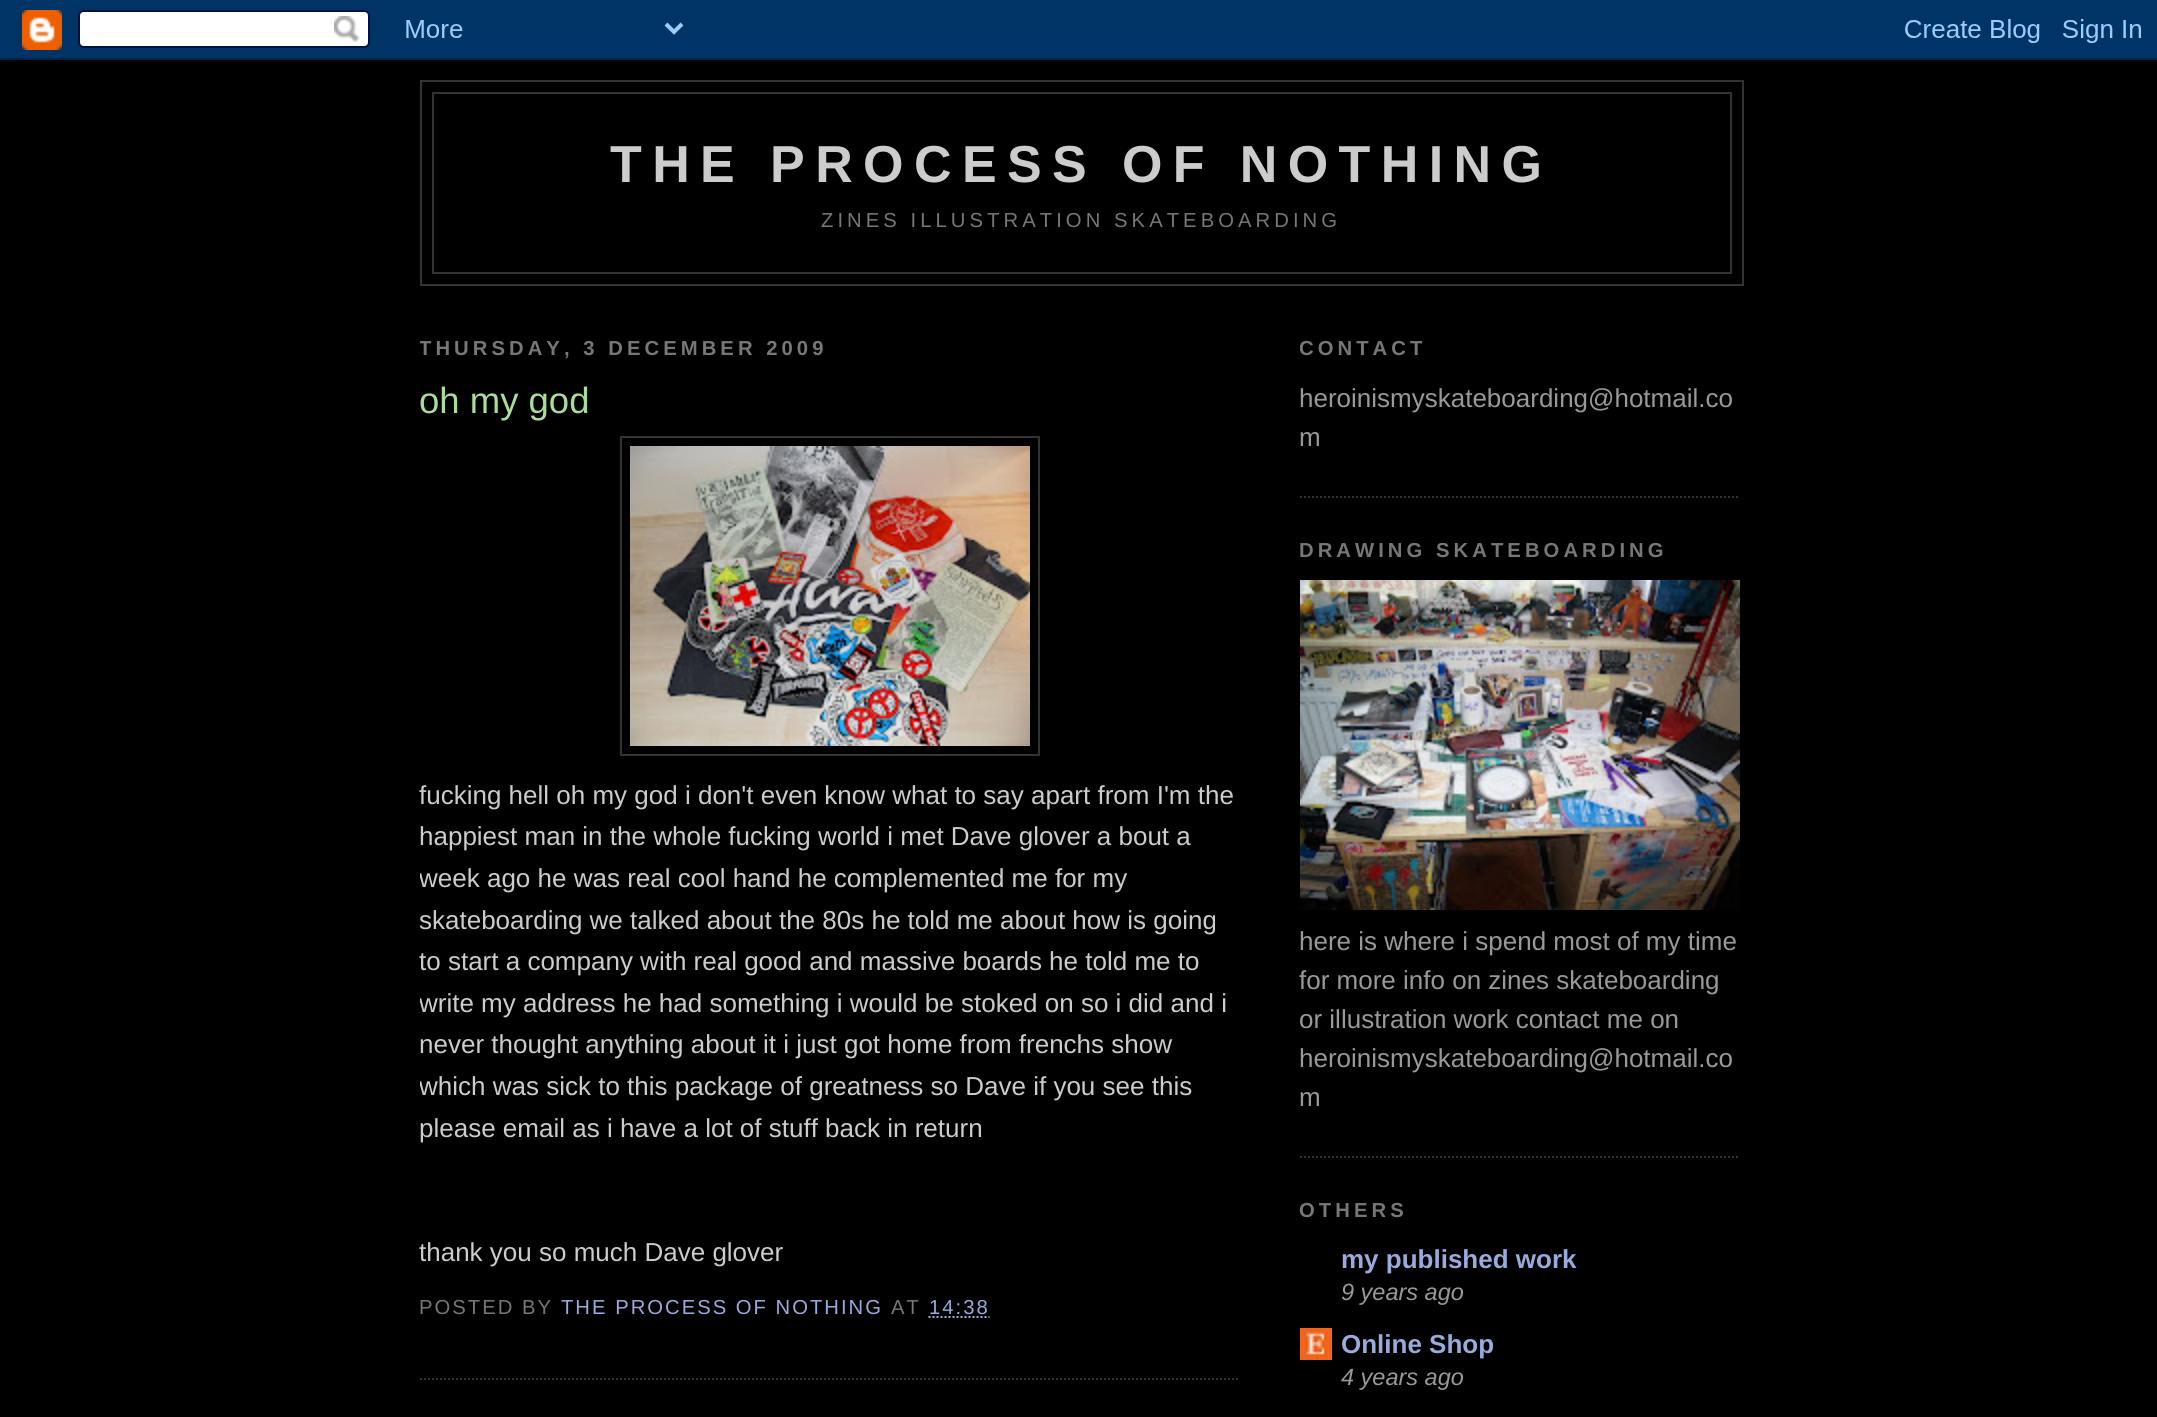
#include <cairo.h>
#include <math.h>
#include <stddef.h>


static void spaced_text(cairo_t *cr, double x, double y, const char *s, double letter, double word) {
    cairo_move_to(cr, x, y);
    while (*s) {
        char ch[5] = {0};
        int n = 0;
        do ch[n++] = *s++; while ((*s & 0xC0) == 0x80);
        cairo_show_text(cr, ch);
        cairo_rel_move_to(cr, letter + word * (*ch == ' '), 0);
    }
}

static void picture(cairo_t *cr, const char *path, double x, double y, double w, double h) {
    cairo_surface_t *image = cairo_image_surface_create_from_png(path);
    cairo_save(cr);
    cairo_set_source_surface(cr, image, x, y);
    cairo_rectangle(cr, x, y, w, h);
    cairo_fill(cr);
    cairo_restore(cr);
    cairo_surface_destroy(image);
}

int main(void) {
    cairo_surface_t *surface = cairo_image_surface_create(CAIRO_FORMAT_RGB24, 2157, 1417);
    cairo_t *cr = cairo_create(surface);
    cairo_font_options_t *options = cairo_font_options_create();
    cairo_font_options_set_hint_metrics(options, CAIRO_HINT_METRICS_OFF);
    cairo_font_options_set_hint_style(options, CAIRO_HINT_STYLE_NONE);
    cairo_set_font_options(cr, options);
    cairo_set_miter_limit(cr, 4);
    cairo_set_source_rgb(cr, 0, 0, 0);
    cairo_paint(cr);
    picture(cr, "img1.png", 0, 0, 2157, 60);
    cairo_rectangle(cr, 421, 81, 1322, 204);
    cairo_set_source_rgb(cr, 0.2, 0.2, 0.2);
    cairo_stroke(cr);
    cairo_rectangle(cr, 433, 93, 1298, 180);
    cairo_stroke(cr);
    cairo_select_font_face(cr, "Liberation Sans", CAIRO_FONT_SLANT_NORMAL, CAIRO_FONT_WEIGHT_BOLD);
    cairo_set_font_size(cr, 52);
    cairo_set_source_rgb(cr, 0.8, 0.8, 0.8);
    spaced_text(cr, 610, 182, "THE PROCESS OF NOTHING", 10.4, 0);
    cairo_select_font_face(cr, "Liberation Sans", CAIRO_FONT_SLANT_NORMAL, CAIRO_FONT_WEIGHT_NORMAL);
    cairo_set_font_size(cr, 20.25);
    cairo_set_source_rgb(cr, 0.467, 0.467, 0.467);
    spaced_text(cr, 821, 227, "ZINES ILLUSTRATION SKATEBOARDING", 4.05, 0);
    cairo_save(cr);
    cairo_rectangle(cr, 420, 306, 820, 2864);
    cairo_clip(cr);
    cairo_select_font_face(cr, "Liberation Sans", CAIRO_FONT_SLANT_NORMAL, CAIRO_FONT_WEIGHT_BOLD);
    spaced_text(cr, 419, 355, "THURSDAY, 3 DECEMBER 2009", 4.05, 0);
    cairo_restore(cr);
    cairo_new_path(cr);
    cairo_move_to(cr, 420, 1379);
    cairo_line_to(cr, 1240, 1379);
    cairo_set_source_rgb(cr, 0.2, 0.2, 0.2);
    cairo_set_dash(cr, (double[]){2, 2}, 2, 0);
    cairo_stroke(cr);
    cairo_set_font_size(cr, 36.5);
    cairo_set_source_rgb(cr, 0.667, 0.867, 0.6);
    cairo_move_to(cr, 419, 413);
    cairo_show_text(cr, "oh my god");
    cairo_rectangle(cr, 621, 437, 418, 318);
    cairo_set_source_rgb(cr, 0.2, 0.2, 0.2);
    cairo_set_dash(cr, NULL, 0, 0);
    cairo_stroke(cr);
    picture(cr, "img2.png", 630, 446, 400, 300);
    cairo_set_font_size(cr, 26);
    cairo_set_source_rgb(cr, 0.8, 0.8, 0.8);
    cairo_move_to(cr, 419, 804);
    cairo_show_text(cr, "fucking hell oh my god i don't even know what to say apart from I'm the");
    cairo_move_to(cr, 419, 845);
    cairo_show_text(cr, "happiest man in the whole fucking world i met Dave glover a bout a");
    cairo_save(cr);
    cairo_rectangle(cr, 420, 306, 820, 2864);
    cairo_clip(cr);
    cairo_move_to(cr, 419, 887);
    cairo_show_text(cr, "week ago he was real cool hand he complemented me for my");
    cairo_restore(cr);
    cairo_move_to(cr, 419, 929);
    cairo_show_text(cr, "skateboarding we talked about the 80s he told me about how is going");
    cairo_move_to(cr, 419, 970);
    cairo_show_text(cr, "to start a company with real good and massive boards he told me to");
    cairo_save(cr);
    cairo_rectangle(cr, 420, 306, 820, 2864);
    cairo_clip(cr);
    cairo_move_to(cr, 419, 1012);
    cairo_show_text(cr, "write my address he had something i would be stoked on so i did and i");
    cairo_restore(cr);
    cairo_move_to(cr, 419, 1053);
    cairo_show_text(cr, "never thought anything about it i just got home from frenchs show");
    cairo_save(cr);
    cairo_rectangle(cr, 420, 306, 820, 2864);
    cairo_clip(cr);
    cairo_move_to(cr, 419, 1095);
    cairo_show_text(cr, "which was sick to this package of greatness so Dave if you see this");
    cairo_restore(cr);
    cairo_move_to(cr, 419, 1137);
    cairo_show_text(cr, "please email as i have a lot of stuff back in return");
    cairo_move_to(cr, 419, 1261);
    cairo_show_text(cr, "thank you so much Dave glover");
    cairo_set_font_size(cr, 20.25);
    cairo_set_source_rgb(cr, 0.467, 0.467, 0.467);
    spaced_text(cr, 419, 1314, "POSTED BY", 2, 0);
    cairo_set_source_rgb(cr, 0.6, 0.667, 0.867);
    spaced_text(cr, 561, 1314, "THE PROCESS OF NOTHING", 2, 0);
    cairo_set_source_rgb(cr, 0.467, 0.467, 0.467);
    spaced_text(cr, 891, 1314, "AT", 2, 0);
    cairo_set_source_rgb(cr, 0.6, 0.667, 0.867);
    spaced_text(cr, 929, 1314, "14:38", 2, 0);
    cairo_new_path(cr);
    cairo_move_to(cr, 928.5, 1317);
    cairo_line_to(cr, 989.5, 1317);
    cairo_set_dash(cr, (double[]){2, 2}, 2, 0);
    cairo_stroke(cr);
    cairo_new_path(cr);
    cairo_move_to(cr, 1300, 497);
    cairo_line_to(cr, 1740, 497);
    cairo_set_source_rgb(cr, 0.2, 0.2, 0.2);
    cairo_stroke(cr);
    cairo_save(cr);
    cairo_rectangle(cr, 1300, 306, 440, 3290);
    cairo_clip(cr);
    cairo_select_font_face(cr, "Liberation Sans", CAIRO_FONT_SLANT_NORMAL, CAIRO_FONT_WEIGHT_BOLD);
    cairo_set_source_rgb(cr, 0.467, 0.467, 0.467);
    spaced_text(cr, 1299, 355, "CONTACT", 4.05, 0);
    cairo_restore(cr);
    cairo_set_font_size(cr, 26);
    cairo_set_source_rgb(cr, 0.6, 0.6, 0.6);
    cairo_move_to(cr, 1299, 407);
    cairo_show_text(cr, "heroinismyskateboarding@hotmail.co");
    cairo_move_to(cr, 1299, 446);
    cairo_show_text(cr, "m");
    cairo_new_path(cr);
    cairo_move_to(cr, 1300, 1157);
    cairo_line_to(cr, 1740, 1157);
    cairo_set_source_rgb(cr, 0.2, 0.2, 0.2);
    cairo_stroke(cr);
    cairo_select_font_face(cr, "Liberation Sans", CAIRO_FONT_SLANT_NORMAL, CAIRO_FONT_WEIGHT_BOLD);
    cairo_set_font_size(cr, 20.25);
    cairo_set_source_rgb(cr, 0.467, 0.467, 0.467);
    spaced_text(cr, 1299, 557, "DRAWING SKATEBOARDING", 4.05, 0);
    picture(cr, "img3.png", 1300, 580, 440, 330);
    cairo_select_font_face(cr, "Liberation Sans", CAIRO_FONT_SLANT_NORMAL, CAIRO_FONT_WEIGHT_NORMAL);
    cairo_set_font_size(cr, 26);
    cairo_set_source_rgb(cr, 0.6, 0.6, 0.6);
    cairo_move_to(cr, 1299, 950);
    cairo_show_text(cr, "here is where i spend most of my time");
    cairo_move_to(cr, 1299, 989);
    cairo_show_text(cr, "for more info on zines skateboarding");
    cairo_move_to(cr, 1299, 1028);
    cairo_show_text(cr, "or illustration work contact me on");
    cairo_move_to(cr, 1299, 1067);
    cairo_show_text(cr, "heroinismyskateboarding@hotmail.co");
    cairo_move_to(cr, 1299, 1106);
    cairo_show_text(cr, "m");
    cairo_select_font_face(cr, "Liberation Sans", CAIRO_FONT_SLANT_NORMAL, CAIRO_FONT_WEIGHT_BOLD);
    cairo_set_font_size(cr, 20.25);
    cairo_set_source_rgb(cr, 0.467, 0.467, 0.467);
    spaced_text(cr, 1299, 1217, "OTHERS", 4.05, 0);
    cairo_set_font_size(cr, 26);
    cairo_set_source_rgb(cr, 0.6, 0.667, 0.867);
    cairo_move_to(cr, 1341, 1268);
    cairo_show_text(cr, "my published work");
    cairo_select_font_face(cr, "Liberation Sans", CAIRO_FONT_SLANT_ITALIC, CAIRO_FONT_WEIGHT_NORMAL);
    cairo_set_font_size(cr, 23.5);
    cairo_set_source_rgb(cr, 0.6, 0.6, 0.6);
    cairo_move_to(cr, 1341, 1300);
    cairo_show_text(cr, "9 years ago");
    picture(cr, "img4.png", 1300, 1328, 32, 32);
    cairo_select_font_face(cr, "Liberation Sans", CAIRO_FONT_SLANT_NORMAL, CAIRO_FONT_WEIGHT_BOLD);
    cairo_set_font_size(cr, 26);
    cairo_set_source_rgb(cr, 0.6, 0.667, 0.867);
    cairo_move_to(cr, 1341, 1353);
    cairo_show_text(cr, "Online Shop");
    cairo_select_font_face(cr, "Liberation Sans", CAIRO_FONT_SLANT_ITALIC, CAIRO_FONT_WEIGHT_NORMAL);
    cairo_set_font_size(cr, 23.5);
    cairo_set_source_rgb(cr, 0.6, 0.6, 0.6);
    cairo_move_to(cr, 1341, 1385);
    cairo_show_text(cr, "4 years ago");
    cairo_surface_write_to_png(surface, "page.png");
    cairo_font_options_destroy(options);
    cairo_destroy(cr);
    cairo_surface_destroy(surface);
    return 0;
}
